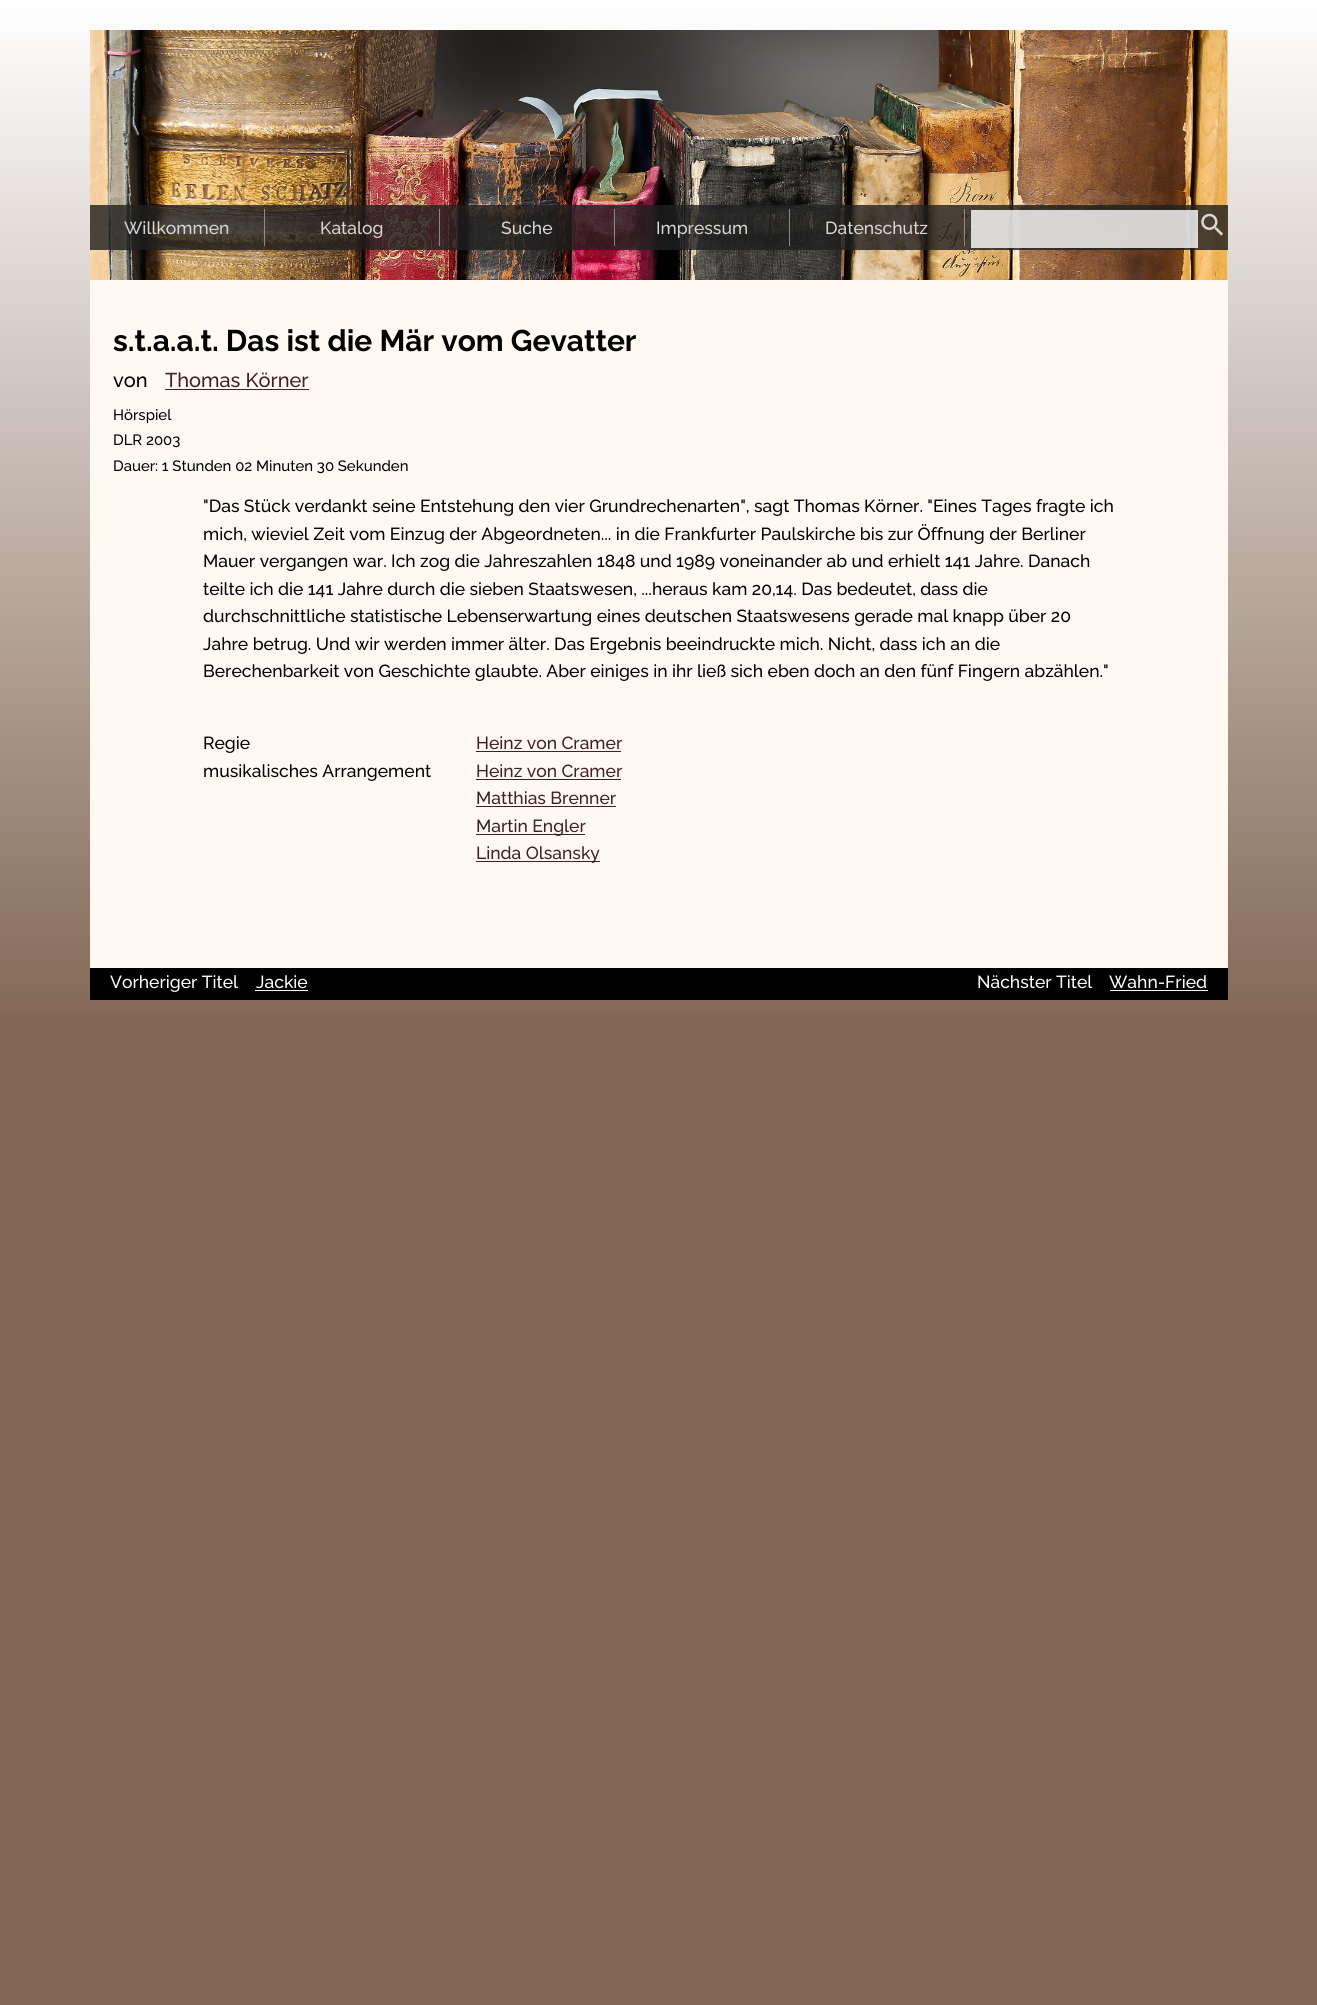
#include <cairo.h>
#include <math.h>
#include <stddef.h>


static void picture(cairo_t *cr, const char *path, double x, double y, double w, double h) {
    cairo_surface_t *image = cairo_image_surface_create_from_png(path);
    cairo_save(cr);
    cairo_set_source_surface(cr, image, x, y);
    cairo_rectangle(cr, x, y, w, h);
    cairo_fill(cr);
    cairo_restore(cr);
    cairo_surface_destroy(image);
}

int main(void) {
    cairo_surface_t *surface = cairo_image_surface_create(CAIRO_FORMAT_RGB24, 1317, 2005);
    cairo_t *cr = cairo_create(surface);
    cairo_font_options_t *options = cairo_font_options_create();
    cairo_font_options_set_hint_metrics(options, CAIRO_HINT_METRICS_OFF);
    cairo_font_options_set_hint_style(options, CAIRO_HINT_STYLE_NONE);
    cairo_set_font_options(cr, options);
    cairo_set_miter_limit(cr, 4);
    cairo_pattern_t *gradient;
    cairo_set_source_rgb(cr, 0.51, 0.404, 0.329);
    cairo_paint(cr);
    gradient = cairo_pattern_create_linear(659, 1030, 659, 0);
    cairo_pattern_add_color_stop_rgba(gradient, 0, 0.51, 0.404, 0.329, 1);
    cairo_pattern_add_color_stop_rgba(gradient, 1, 1, 1, 1, 1);
    cairo_set_source(cr, gradient);
    cairo_pattern_destroy(gradient);
    cairo_rectangle(cr, 0, 0, 1317, 1015);
    cairo_fill(cr);
    cairo_set_source_rgb(cr, 1, 0.973, 0.949);
    cairo_rectangle(cr, 90, 30, 1138, 938);
    cairo_fill(cr);
    picture(cr, "img1.png", 90, 30, 1138, 250);
    cairo_set_source_rgba(cr, 0.125, 0.125, 0.125, 0.8);
    cairo_rectangle(cr, 90, 205, 1138, 45);
    cairo_fill(cr);
    cairo_set_source_rgba(cr, 0.627, 0.627, 0.627, 0.8);
    cairo_rectangle(cr, 264, 209, 1, 37);
    cairo_fill(cr);
    cairo_select_font_face(cr, "Raleway Medium", CAIRO_FONT_SLANT_NORMAL, CAIRO_FONT_WEIGHT_NORMAL);
    cairo_set_font_size(cr, 17.5);
    cairo_set_source_rgb(cr, 0.847, 0.843, 0.839);
    cairo_move_to(cr, 124, 234);
    cairo_show_text(cr, "Willkommen");
    cairo_set_source_rgba(cr, 0.627, 0.627, 0.627, 0.8);
    cairo_rectangle(cr, 439, 209, 1, 37);
    cairo_fill(cr);
    cairo_set_source_rgb(cr, 0.847, 0.843, 0.839);
    cairo_move_to(cr, 320, 234);
    cairo_show_text(cr, "Katalog");
    cairo_set_source_rgba(cr, 0.627, 0.627, 0.627, 0.8);
    cairo_rectangle(cr, 614, 209, 1, 37);
    cairo_fill(cr);
    cairo_set_source_rgb(cr, 0.847, 0.843, 0.839);
    cairo_move_to(cr, 501, 234);
    cairo_show_text(cr, "Suche");
    cairo_set_source_rgba(cr, 0.627, 0.627, 0.627, 0.8);
    cairo_rectangle(cr, 789, 209, 1, 37);
    cairo_fill(cr);
    cairo_set_source_rgb(cr, 0.847, 0.843, 0.839);
    cairo_move_to(cr, 656, 234);
    cairo_show_text(cr, "Impressum");
    cairo_set_source_rgba(cr, 0.627, 0.627, 0.627, 0.8);
    cairo_rectangle(cr, 964, 209, 1, 37);
    cairo_fill(cr);
    cairo_set_source_rgb(cr, 0.847, 0.843, 0.839);
    cairo_move_to(cr, 825, 234);
    cairo_show_text(cr, "Datenschutz");
    cairo_set_source_rgba(cr, 1, 1, 1, 0.8);
    cairo_rectangle(cr, 971, 210, 227, 38);
    cairo_fill(cr);
    picture(cr, "img2.png", 1201, 213, 22, 23);
    cairo_select_font_face(cr, "Raleway", CAIRO_FONT_SLANT_NORMAL, CAIRO_FONT_WEIGHT_BOLD);
    cairo_set_font_size(cr, 29.9);
    cairo_set_source_rgb(cr, 0, 0, 0);
    cairo_move_to(cr, 113, 351);
    cairo_show_text(cr, "s.t.a.a.t. Das ist die Mär vom Gevatter");
    cairo_select_font_face(cr, "Raleway Medium", CAIRO_FONT_SLANT_NORMAL, CAIRO_FONT_WEIGHT_NORMAL);
    cairo_set_font_size(cr, 20);
    cairo_move_to(cr, 113, 387);
    cairo_show_text(cr, "von");
    cairo_set_source_rgb(cr, 0.251, 0.125, 0.125);
    cairo_move_to(cr, 165, 387);
    cairo_show_text(cr, "Thomas Körner");
    cairo_rectangle(cr, 165, 389, 144, 1);
    cairo_fill(cr);
    cairo_set_font_size(cr, 14.9);
    cairo_set_source_rgb(cr, 0, 0, 0);
    cairo_move_to(cr, 113, 420);
    cairo_show_text(cr, "Hörspiel");
    cairo_move_to(cr, 113, 445);
    cairo_show_text(cr, "DLR 2003");
    cairo_move_to(cr, 113, 471);
    cairo_show_text(cr, "Dauer: 1 Stunden 02 Minuten 30 Sekunden");
    cairo_set_font_size(cr, 17.5);
    cairo_move_to(cr, 203, 512);
    cairo_show_text(cr, "\"Das Stück verdankt seine Entstehung den vier Grundrechenarten\", sagt Thomas Körner. \"Eines Tages fragte ich");
    cairo_move_to(cr, 203, 540);
    cairo_show_text(cr, "mich, wieviel Zeit vom Einzug der Abgeordneten... in die Frankfurter Paulskirche bis zur Öffnung der Berliner");
    cairo_move_to(cr, 203, 567);
    cairo_show_text(cr, "Mauer vergangen war. Ich zog die Jahreszahlen 1848 und 1989 voneinander ab und erhielt 141 Jahre. Danach");
    cairo_move_to(cr, 203, 595);
    cairo_show_text(cr, "teilte ich die 141 Jahre durch die sieben Staatswesen, ...heraus kam 20,14. Das bedeutet, dass die");
    cairo_move_to(cr, 203, 622);
    cairo_show_text(cr, "durchschnittliche statistische Lebenserwartung eines deutschen Staatswesens gerade mal knapp über 20");
    cairo_move_to(cr, 203, 650);
    cairo_show_text(cr, "Jahre betrug. Und wir werden immer älter. Das Ergebnis beeindruckte mich. Nicht, dass ich an die");
    cairo_move_to(cr, 203, 677);
    cairo_show_text(cr, "Berechenbarkeit von Geschichte glaubte. Aber einiges in ihr ließ sich eben doch an den fünf Fingern abzählen.\"");
    cairo_move_to(cr, 203, 749);
    cairo_show_text(cr, "Regie");
    cairo_set_source_rgb(cr, 0.251, 0.125, 0.125);
    cairo_move_to(cr, 476, 749);
    cairo_show_text(cr, "Heinz von Cramer");
    cairo_rectangle(cr, 476, 751, 145, 1);
    cairo_fill(cr);
    cairo_set_source_rgb(cr, 0, 0, 0);
    cairo_move_to(cr, 203, 777);
    cairo_show_text(cr, "musikalisches Arrangement");
    cairo_set_source_rgb(cr, 0.251, 0.125, 0.125);
    cairo_move_to(cr, 476, 777);
    cairo_show_text(cr, "Heinz von Cramer");
    cairo_rectangle(cr, 476, 779, 145, 1);
    cairo_fill(cr);
    cairo_move_to(cr, 476, 804);
    cairo_show_text(cr, "Matthias Brenner");
    cairo_rectangle(cr, 476, 806, 140, 1);
    cairo_fill(cr);
    cairo_rectangle(cr, 476, 834, 109, 1);
    cairo_fill(cr);
    cairo_move_to(cr, 476, 832);
    cairo_show_text(cr, "Martin Engler");
    cairo_rectangle(cr, 476, 861, 124, 1);
    cairo_fill(cr);
    cairo_move_to(cr, 476, 859);
    cairo_show_text(cr, "Linda Olsansky");
    cairo_set_source_rgb(cr, 0, 0, 0);
    cairo_rectangle(cr, 90, 968, 1138, 32);
    cairo_fill(cr);
    cairo_set_source_rgb(cr, 1, 1, 1);
    cairo_move_to(cr, 110, 988);
    cairo_show_text(cr, "Vorheriger Titel");
    cairo_move_to(cr, 256, 988);
    cairo_show_text(cr, "Jackie");
    cairo_rectangle(cr, 255, 990, 53, 1);
    cairo_fill(cr);
    cairo_move_to(cr, 977, 988);
    cairo_show_text(cr, "Nächster Titel");
    cairo_move_to(cr, 1109, 988);
    cairo_show_text(cr, "Wahn-Fried");
    cairo_rectangle(cr, 1110, 990, 98, 1);
    cairo_fill(cr);
    cairo_surface_write_to_png(surface, "page.png");
    cairo_font_options_destroy(options);
    cairo_destroy(cr);
    cairo_surface_destroy(surface);
    return 0;
}
